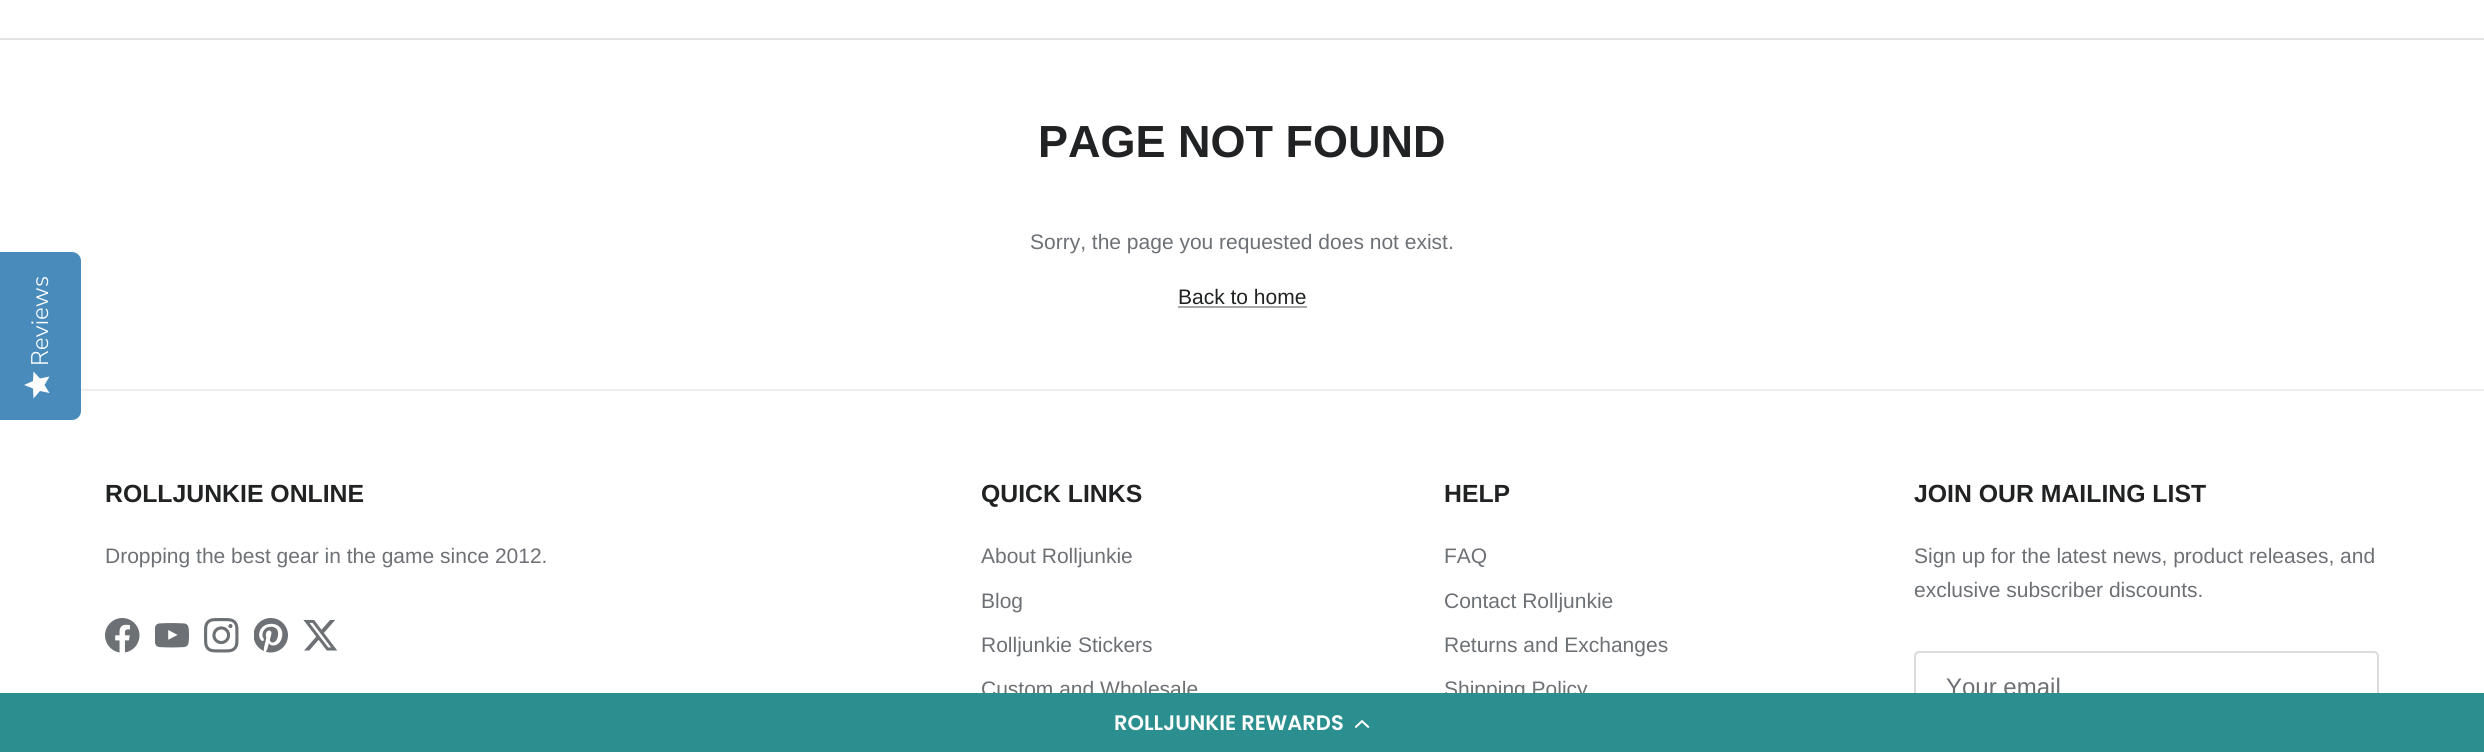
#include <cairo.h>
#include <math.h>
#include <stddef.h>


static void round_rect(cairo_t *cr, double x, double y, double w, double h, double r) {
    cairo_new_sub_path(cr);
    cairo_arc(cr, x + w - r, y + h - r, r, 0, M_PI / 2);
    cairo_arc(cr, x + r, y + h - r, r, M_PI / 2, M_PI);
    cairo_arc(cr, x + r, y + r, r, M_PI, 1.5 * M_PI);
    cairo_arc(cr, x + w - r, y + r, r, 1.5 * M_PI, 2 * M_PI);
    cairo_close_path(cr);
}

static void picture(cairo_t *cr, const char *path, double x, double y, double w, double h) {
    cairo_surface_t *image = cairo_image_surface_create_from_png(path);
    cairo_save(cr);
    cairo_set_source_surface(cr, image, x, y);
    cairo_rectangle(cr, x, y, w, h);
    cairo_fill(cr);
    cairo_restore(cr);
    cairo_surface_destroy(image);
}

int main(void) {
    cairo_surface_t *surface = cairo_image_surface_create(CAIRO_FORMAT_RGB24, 2484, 752);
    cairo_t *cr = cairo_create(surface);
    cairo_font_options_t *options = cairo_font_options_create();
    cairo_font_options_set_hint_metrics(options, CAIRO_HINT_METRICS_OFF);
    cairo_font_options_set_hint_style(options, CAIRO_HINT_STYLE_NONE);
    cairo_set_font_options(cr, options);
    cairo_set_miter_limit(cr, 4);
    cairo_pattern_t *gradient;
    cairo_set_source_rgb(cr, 1, 1, 1);
    cairo_paint(cr);
    cairo_set_source_rgb(cr, 0.886, 0.886, 0.886);
    cairo_rectangle(cr, 0, 38, 2484, 2);
    cairo_fill(cr);
    cairo_select_font_face(cr, "Liberation Sans", CAIRO_FONT_SLANT_NORMAL, CAIRO_FONT_WEIGHT_BOLD);
    cairo_set_font_size(cr, 45);
    cairo_set_source_rgb(cr, 0.125, 0.133, 0.137);
    cairo_move_to(cr, 1038, 157);
    cairo_show_text(cr, "PAGE NOT FOUND");
    cairo_select_font_face(cr, "Liberation Sans", CAIRO_FONT_SLANT_NORMAL, CAIRO_FONT_WEIGHT_NORMAL);
    cairo_set_font_size(cr, 21);
    cairo_set_source_rgb(cr, 0.427, 0.443, 0.459);
    cairo_move_to(cr, 1030, 249);
    cairo_show_text(cr, "Sorry, the page you requested does not exist.");
    cairo_set_source_rgb(cr, 0.125, 0.133, 0.137);
    cairo_move_to(cr, 1178, 304);
    cairo_show_text(cr, "Back to home");
    cairo_set_source_rgb(cr, 0.651, 0.655, 0.655);
    cairo_rectangle(cr, 1178, 306, 129, 2);
    cairo_fill(cr);
    cairo_set_source_rgb(cr, 0.286, 0.549, 0.737);
    cairo_new_path(cr);
    cairo_move_to(cr, 0, 420);
    cairo_line_to(cr, 0, 252);
    cairo_line_to(cr, 72, 252);
    cairo_curve_to(cr, 77, 252, 81, 256, 81, 261);
    cairo_line_to(cr, 81, 411);
    cairo_curve_to(cr, 81, 416, 77, 420, 72, 420);
    cairo_close_path(cr);
    cairo_fill(cr);
    cairo_select_font_face(cr, "Nunito Sans Light", CAIRO_FONT_SLANT_NORMAL, CAIRO_FONT_WEIGHT_NORMAL);
    cairo_set_font_size(cr, 24);
    cairo_set_source_rgb(cr, 0.996, 0.996, 0.996);
    cairo_save(cr);
    cairo_translate(cr, 48, 366);
    cairo_rotate(cr, -90 * M_PI / 180);
    cairo_move_to(cr, 0, 0);
    cairo_show_text(cr, "Reviews");
    cairo_restore(cr);
    gradient = cairo_pattern_create_linear(24, 398, 24, 371);
    cairo_pattern_add_color_stop_rgba(gradient, 1, 0.996, 0.996, 0.996, 1);
    cairo_pattern_add_color_stop_rgba(gradient, 1, 0.918, 0.918, 0.918, 1);
    cairo_set_source(cr, gradient);
    cairo_pattern_destroy(gradient);
    cairo_new_path(cr);
    cairo_move_to(cr, 44.5, 385);
    cairo_line_to(cr, 49.5, 376.5);
    cairo_line_to(cr, 40, 378.5);
    cairo_line_to(cr, 33.5, 371.5);
    cairo_line_to(cr, 33, 381);
    cairo_line_to(cr, 24, 385);
    cairo_line_to(cr, 33, 388.5);
    cairo_line_to(cr, 33.5, 398.5);
    cairo_line_to(cr, 40, 391);
    cairo_line_to(cr, 49.5, 393);
    cairo_close_path(cr);
    cairo_fill(cr);
    cairo_set_source_rgb(cr, 0.933, 0.933, 0.933);
    cairo_rectangle(cr, 81, 389, 2403, 2);
    cairo_fill(cr);
    cairo_select_font_face(cr, "Liberation Sans", CAIRO_FONT_SLANT_NORMAL, CAIRO_FONT_WEIGHT_BOLD);
    cairo_set_font_size(cr, 24.8);
    cairo_set_source_rgb(cr, 0.125, 0.133, 0.137);
    cairo_move_to(cr, 105, 502);
    cairo_show_text(cr, "ROLLJUNKIE ONLINE");
    cairo_select_font_face(cr, "Liberation Sans", CAIRO_FONT_SLANT_NORMAL, CAIRO_FONT_WEIGHT_NORMAL);
    cairo_set_font_size(cr, 21);
    cairo_set_source_rgb(cr, 0.427, 0.443, 0.459);
    cairo_move_to(cr, 105, 563);
    cairo_show_text(cr, "Dropping the best gear in the game since 2012.");
    picture(cr, "img1.png", 105, 618, 35, 35);
    picture(cr, "img2.png", 155, 623, 34, 25);
    picture(cr, "img3.png", 204, 618, 35, 35);
    picture(cr, "img4.png", 254, 618, 34, 35);
    picture(cr, "img5.png", 303, 619, 35, 32);
    cairo_select_font_face(cr, "Liberation Sans", CAIRO_FONT_SLANT_NORMAL, CAIRO_FONT_WEIGHT_BOLD);
    cairo_set_font_size(cr, 24.8);
    cairo_set_source_rgb(cr, 0.125, 0.133, 0.137);
    cairo_move_to(cr, 981, 502);
    cairo_show_text(cr, "QUICK LINKS");
    cairo_select_font_face(cr, "Liberation Sans", CAIRO_FONT_SLANT_NORMAL, CAIRO_FONT_WEIGHT_NORMAL);
    cairo_set_font_size(cr, 21);
    cairo_set_source_rgb(cr, 0.427, 0.443, 0.459);
    cairo_move_to(cr, 981, 563);
    cairo_show_text(cr, "About Rolljunkie");
    cairo_move_to(cr, 981, 608);
    cairo_show_text(cr, "Blog");
    cairo_move_to(cr, 981, 652);
    cairo_show_text(cr, "Rolljunkie Stickers");
    cairo_move_to(cr, 981, 696);
    cairo_show_text(cr, "Custom and Wholesale");
    cairo_select_font_face(cr, "Liberation Sans", CAIRO_FONT_SLANT_NORMAL, CAIRO_FONT_WEIGHT_BOLD);
    cairo_set_font_size(cr, 24.8);
    cairo_set_source_rgb(cr, 0.125, 0.133, 0.137);
    cairo_move_to(cr, 1444, 502);
    cairo_show_text(cr, "HELP");
    cairo_select_font_face(cr, "Liberation Sans", CAIRO_FONT_SLANT_NORMAL, CAIRO_FONT_WEIGHT_NORMAL);
    cairo_set_font_size(cr, 21);
    cairo_set_source_rgb(cr, 0.427, 0.443, 0.459);
    cairo_move_to(cr, 1444, 563);
    cairo_show_text(cr, "FAQ");
    cairo_move_to(cr, 1444, 608);
    cairo_show_text(cr, "Contact Rolljunkie");
    cairo_move_to(cr, 1444, 652);
    cairo_show_text(cr, "Returns and Exchanges");
    cairo_move_to(cr, 1444, 696);
    cairo_show_text(cr, "Shipping Policy");
    cairo_select_font_face(cr, "Liberation Sans", CAIRO_FONT_SLANT_NORMAL, CAIRO_FONT_WEIGHT_BOLD);
    cairo_set_font_size(cr, 24.8);
    cairo_set_source_rgb(cr, 0.125, 0.133, 0.137);
    cairo_move_to(cr, 1914, 502);
    cairo_show_text(cr, "JOIN OUR MAILING LIST");
    cairo_select_font_face(cr, "Liberation Sans", CAIRO_FONT_SLANT_NORMAL, CAIRO_FONT_WEIGHT_NORMAL);
    cairo_set_font_size(cr, 21);
    cairo_set_source_rgb(cr, 0.427, 0.443, 0.459);
    cairo_move_to(cr, 1914, 563);
    cairo_show_text(cr, "Sign up for the latest news, product releases, and");
    cairo_move_to(cr, 1914, 597);
    cairo_show_text(cr, "exclusive subscriber discounts.");
    round_rect(cr, 1915, 652, 463, 72, 4);
    cairo_set_source_rgb(cr, 0.859, 0.863, 0.867);
    cairo_stroke(cr);
    cairo_set_font_size(cr, 24);
    cairo_set_source_rgb(cr, 0.427, 0.443, 0.459);
    cairo_move_to(cr, 1946, 695);
    cairo_show_text(cr, "Your email");
    cairo_set_source_rgb(cr, 0.173, 0.561, 0.561);
    cairo_rectangle(cr, 0, 693, 2484, 59);
    cairo_fill(cr);
    cairo_select_font_face(cr, "Poppins SemiBold", CAIRO_FONT_SLANT_NORMAL, CAIRO_FONT_WEIGHT_NORMAL);
    cairo_set_font_size(cr, 21);
    cairo_set_source_rgb(cr, 0.996, 0.996, 0.996);
    cairo_move_to(cr, 1114, 730);
    cairo_show_text(cr, "ROLLJUNKIE REWARDS");
    picture(cr, "img6.png", 1355, 719, 15, 10);
    cairo_surface_write_to_png(surface, "page.png");
    cairo_font_options_destroy(options);
    cairo_destroy(cr);
    cairo_surface_destroy(surface);
    return 0;
}
